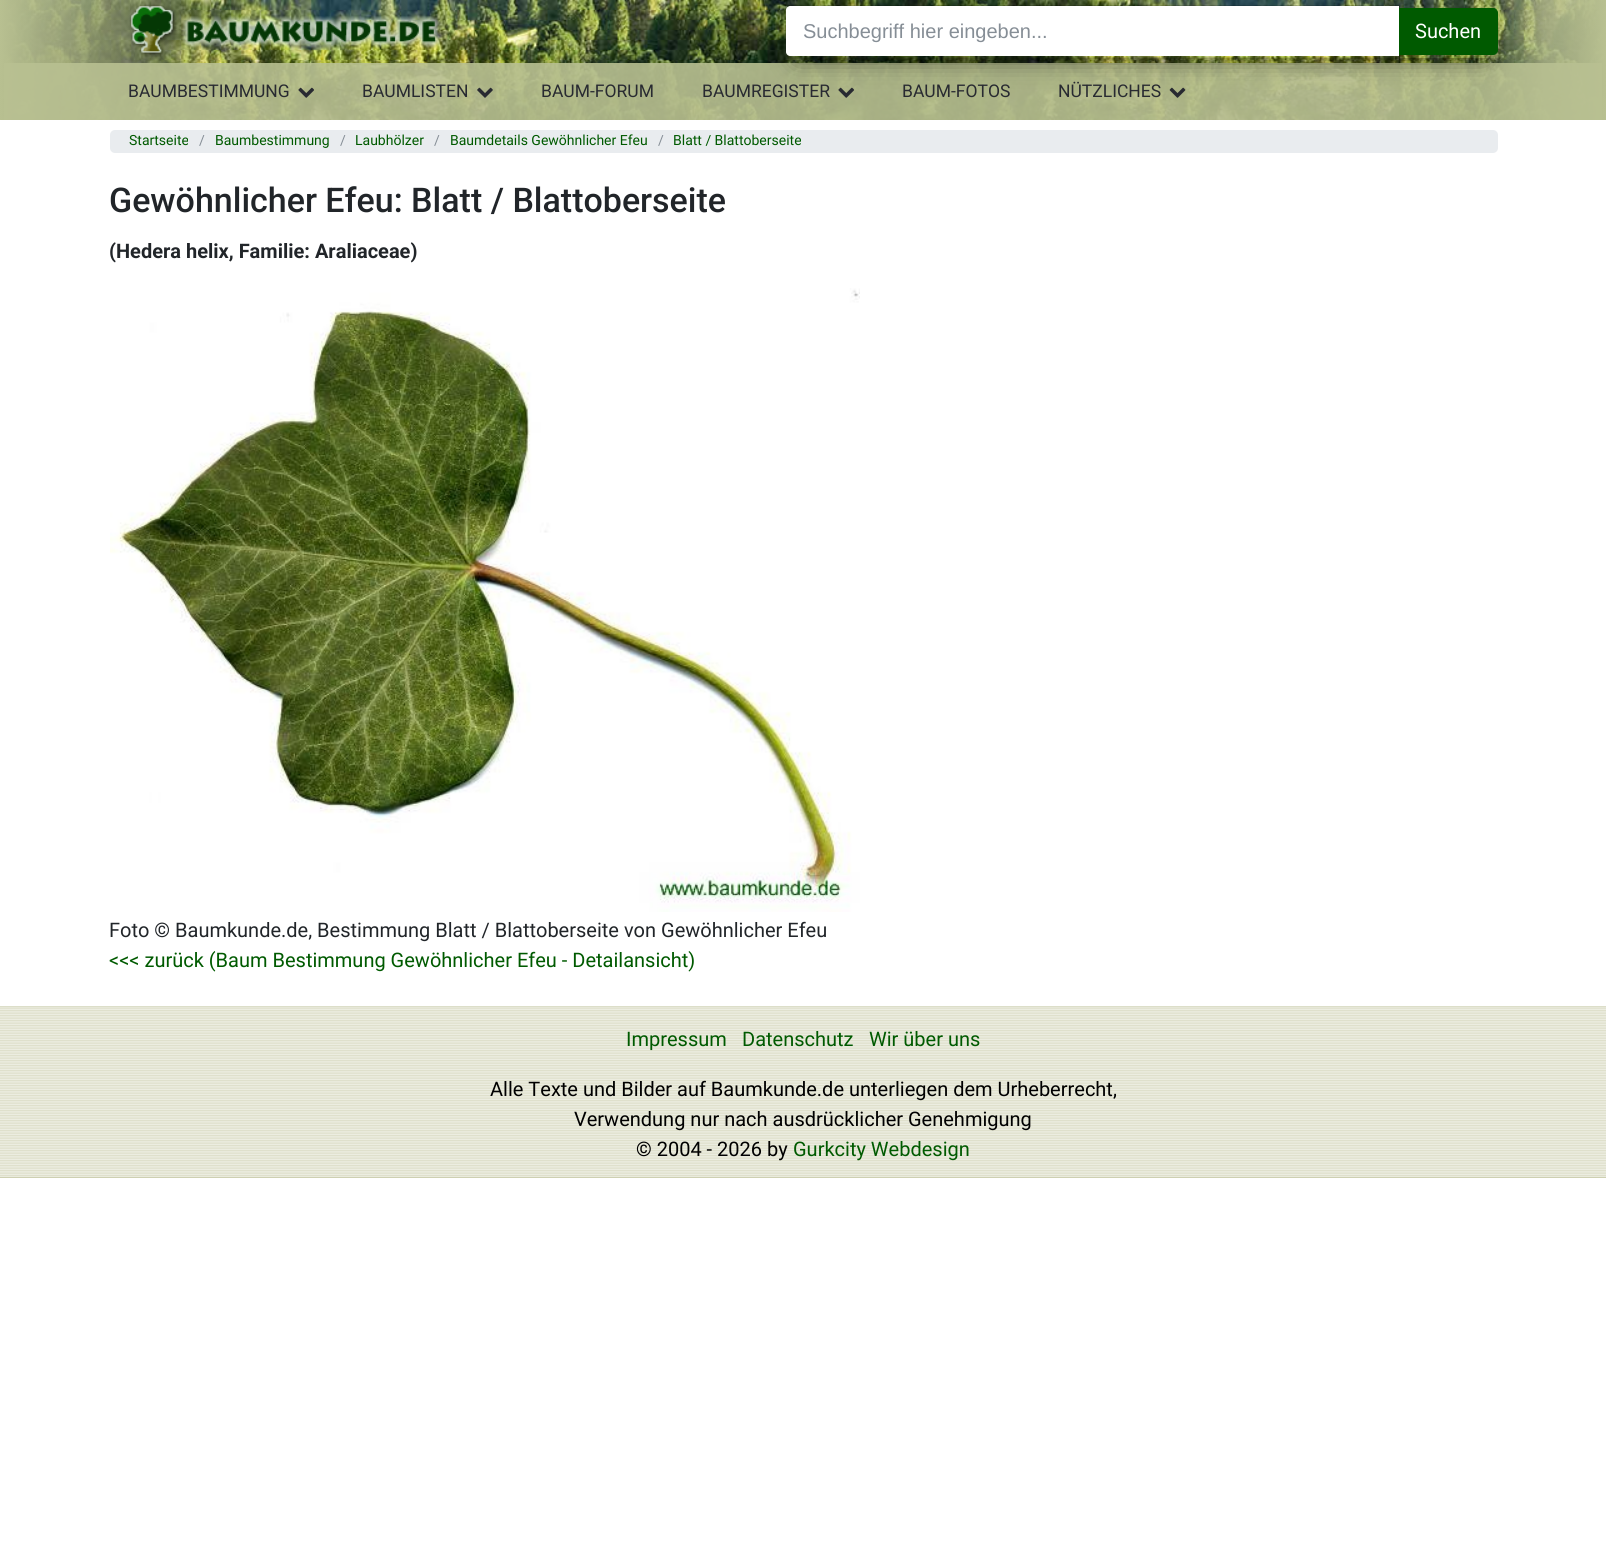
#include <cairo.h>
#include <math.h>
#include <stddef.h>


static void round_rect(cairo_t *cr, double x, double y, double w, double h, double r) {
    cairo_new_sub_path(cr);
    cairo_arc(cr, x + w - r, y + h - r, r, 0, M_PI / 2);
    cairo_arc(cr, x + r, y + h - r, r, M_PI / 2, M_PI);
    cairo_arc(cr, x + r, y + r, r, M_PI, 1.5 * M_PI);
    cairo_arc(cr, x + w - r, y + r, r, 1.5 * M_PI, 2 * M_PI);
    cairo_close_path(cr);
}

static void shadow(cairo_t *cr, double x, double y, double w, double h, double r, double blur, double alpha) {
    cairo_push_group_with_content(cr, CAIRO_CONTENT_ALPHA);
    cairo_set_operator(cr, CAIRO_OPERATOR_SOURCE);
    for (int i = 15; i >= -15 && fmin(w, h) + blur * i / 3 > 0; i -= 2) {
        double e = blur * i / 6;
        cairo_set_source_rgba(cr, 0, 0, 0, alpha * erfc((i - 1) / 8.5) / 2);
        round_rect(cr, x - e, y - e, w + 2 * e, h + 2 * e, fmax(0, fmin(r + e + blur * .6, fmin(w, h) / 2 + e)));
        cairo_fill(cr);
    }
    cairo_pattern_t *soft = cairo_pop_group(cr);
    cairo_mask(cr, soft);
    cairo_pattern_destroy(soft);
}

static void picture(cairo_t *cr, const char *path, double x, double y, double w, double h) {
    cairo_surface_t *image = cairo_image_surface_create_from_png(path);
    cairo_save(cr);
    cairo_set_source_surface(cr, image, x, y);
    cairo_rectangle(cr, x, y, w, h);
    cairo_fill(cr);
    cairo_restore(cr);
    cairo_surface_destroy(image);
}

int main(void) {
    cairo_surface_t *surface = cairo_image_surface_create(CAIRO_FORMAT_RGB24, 1606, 1553);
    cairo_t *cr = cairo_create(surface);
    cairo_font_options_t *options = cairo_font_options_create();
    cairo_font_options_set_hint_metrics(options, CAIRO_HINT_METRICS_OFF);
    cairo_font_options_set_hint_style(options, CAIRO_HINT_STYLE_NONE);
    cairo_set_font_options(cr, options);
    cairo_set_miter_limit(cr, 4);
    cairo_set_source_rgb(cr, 1, 1, 1);
    cairo_paint(cr);
    picture(cr, "img1.png", 0, 0, 1606, 120);
    picture(cr, "img2.png", 129, 4, 312, 53);
    cairo_set_source_rgba(cr, 0.722, 0.753, 0.569, 0.9);
    cairo_rectangle(cr, 4, 63, 1598, 57);
    cairo_fill(cr);
    picture(cr, "img5.png", 838, 87, 16, 11);
    picture(cr, "img6.png", 1169, 87, 17, 11);
    cairo_save(cr);
    cairo_set_fill_rule(cr, CAIRO_FILL_RULE_EVEN_ODD);
    cairo_new_path(cr);
    cairo_move_to(cr, 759, 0);
    cairo_line_to(cr, 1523, 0);
    cairo_line_to(cr, 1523, 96);
    cairo_line_to(cr, 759, 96);
    cairo_close_path(cr);
    cairo_move_to(cr, 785, 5);
    cairo_line_to(cr, 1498, 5);
    cairo_line_to(cr, 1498, 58);
    cairo_line_to(cr, 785, 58);
    cairo_close_path(cr);
    cairo_clip(cr);
    cairo_set_source_rgb(cr, 0, 0, 0);
    shadow(cr, 796, 29, 690, 30, 0, 12, 0.56);
    cairo_restore(cr);
    cairo_set_source_rgb(cr, 1, 1, 1);
    cairo_new_path(cr);
    cairo_move_to(cr, 790, 6);
    cairo_line_to(cr, 1399, 6);
    cairo_line_to(cr, 1399, 56);
    cairo_line_to(cr, 790, 56);
    cairo_curve_to(cr, 788, 56, 786, 54, 786, 52);
    cairo_line_to(cr, 786, 10);
    cairo_curve_to(cr, 786, 8, 788, 6, 790, 6);
    cairo_close_path(cr);
    cairo_fill(cr);
    cairo_new_path(cr);
    cairo_move_to(cr, 790, 5.5);
    cairo_line_to(cr, 1399.5, 5.5);
    cairo_line_to(cr, 1399.5, 57.5);
    cairo_line_to(cr, 790, 57.5);
    cairo_curve_to(cr, 787.5, 57.5, 785.5, 55.5, 785.5, 53);
    cairo_line_to(cr, 785.5, 10);
    cairo_curve_to(cr, 785.5, 7.5, 787.5, 5.5, 790, 5.5);
    cairo_close_path(cr);
    cairo_set_source_rgba(cr, 0, 0, 0, 0.15);
    cairo_set_line_width(cr, 1);
    cairo_stroke(cr);
    cairo_select_font_face(cr, "Liberation Sans", CAIRO_FONT_SLANT_NORMAL, CAIRO_FONT_WEIGHT_NORMAL);
    cairo_set_font_size(cr, 20);
    cairo_set_source_rgb(cr, 0.525, 0.557, 0.588);
    cairo_move_to(cr, 803, 38);
    cairo_show_text(cr, "Suchbegriff hier eingeben...");
    cairo_set_source_rgb(cr, 0, 0.353, 0);
    cairo_new_path(cr);
    cairo_move_to(cr, 1399.5, 8.5);
    cairo_line_to(cr, 1493, 8.5);
    cairo_curve_to(cr, 1495.5, 8.5, 1497.5, 10.5, 1497.5, 13);
    cairo_line_to(cr, 1497.5, 50);
    cairo_curve_to(cr, 1497.5, 52.5, 1495.5, 54.5, 1493, 54.5);
    cairo_line_to(cr, 1399.5, 54.5);
    cairo_close_path(cr);
    cairo_fill_preserve(cr);
    cairo_stroke(cr);
    cairo_select_font_face(cr, "Roboto", CAIRO_FONT_SLANT_NORMAL, CAIRO_FONT_WEIGHT_NORMAL);
    cairo_set_source_rgb(cr, 1, 1, 1);
    cairo_move_to(cr, 1415, 38);
    cairo_show_text(cr, "Suchen");
    cairo_set_font_size(cr, 17.5);
    cairo_set_source_rgb(cr, 0.157, 0.165, 0.192);
    cairo_move_to(cr, 128, 97);
    cairo_show_text(cr, "BAUMBESTIMMUNG");
    picture(cr, "img3.png", 298, 87, 16, 11);
    cairo_move_to(cr, 362, 97);
    cairo_show_text(cr, "BAUMLISTEN");
    picture(cr, "img4.png", 477, 87, 16, 11);
    cairo_move_to(cr, 541, 97);
    cairo_show_text(cr, "BAUM-FORUM");
    cairo_move_to(cr, 702, 97);
    cairo_show_text(cr, "BAUMREGISTER");
    cairo_move_to(cr, 902, 97);
    cairo_show_text(cr, "BAUM-FOTOS");
    cairo_move_to(cr, 1058, 97);
    cairo_show_text(cr, "NÜTZLICHES");
    cairo_set_source_rgb(cr, 0.914, 0.925, 0.937);
    round_rect(cr, 110, 130, 1388, 23, 5);
    cairo_fill(cr);
    cairo_set_font_size(cr, 14);
    cairo_set_source_rgb(cr, 0, 0.353, 0);
    cairo_move_to(cr, 129, 145);
    cairo_show_text(cr, "Startseite");
    cairo_set_source_rgb(cr, 0.525, 0.557, 0.588);
    cairo_move_to(cr, 199, 145);
    cairo_show_text(cr, "/");
    cairo_set_source_rgb(cr, 0, 0.353, 0);
    cairo_move_to(cr, 215, 145);
    cairo_show_text(cr, "Baumbestimmung");
    cairo_set_source_rgb(cr, 0.525, 0.557, 0.588);
    cairo_move_to(cr, 340, 145);
    cairo_show_text(cr, "/");
    cairo_set_source_rgb(cr, 0, 0.353, 0);
    cairo_move_to(cr, 355, 145);
    cairo_show_text(cr, "Laubhölzer");
    cairo_set_source_rgb(cr, 0.525, 0.557, 0.588);
    cairo_move_to(cr, 434, 145);
    cairo_show_text(cr, "/");
    cairo_set_source_rgb(cr, 0, 0.353, 0);
    cairo_move_to(cr, 450, 145);
    cairo_show_text(cr, "Baumdetails Gewöhnlicher Efeu");
    cairo_set_source_rgb(cr, 0.525, 0.557, 0.588);
    cairo_move_to(cr, 658, 145);
    cairo_show_text(cr, "/");
    cairo_set_source_rgb(cr, 0, 0.353, 0);
    cairo_move_to(cr, 673, 145);
    cairo_show_text(cr, "Blatt / Blattoberseite");
    cairo_select_font_face(cr, "Roboto Medium", CAIRO_FONT_SLANT_NORMAL, CAIRO_FONT_WEIGHT_NORMAL);
    cairo_set_font_size(cr, 34);
    cairo_set_source_rgb(cr, 0.129, 0.145, 0.161);
    cairo_move_to(cr, 109, 212);
    cairo_show_text(cr, "Gewöhnlicher Efeu: Blatt / Blattoberseite");
    cairo_select_font_face(cr, "Roboto", CAIRO_FONT_SLANT_NORMAL, CAIRO_FONT_WEIGHT_BOLD);
    cairo_set_font_size(cr, 20);
    cairo_move_to(cr, 109, 258);
    cairo_show_text(cr, "(Hedera helix, Familie: Araliaceae)");
    picture(cr, "img7.png", 110, 288, 750, 624);
    cairo_select_font_face(cr, "Roboto", CAIRO_FONT_SLANT_NORMAL, CAIRO_FONT_WEIGHT_NORMAL);
    cairo_move_to(cr, 109, 937);
    cairo_show_text(cr, "Foto © Baumkunde.de, Bestimmung Blatt / Blattoberseite von Gewöhnlicher Efeu");
    cairo_set_source_rgb(cr, 0, 0.353, 0);
    cairo_move_to(cr, 109, 967);
    cairo_show_text(cr, "<<< zurück (Baum Bestimmung Gewöhnlicher Efeu - Detailansicht)");
    cairo_set_source_rgb(cr, 0.714, 0.725, 0.549);
    cairo_rectangle(cr, 0, 1006, 1606, 172);
    cairo_fill(cr);
    picture(cr, "img8.png", 0, 1006, 1606, 172);
    cairo_set_source_rgb(cr, 0, 0.353, 0);
    cairo_move_to(cr, 626, 1046);
    cairo_show_text(cr, "Impressum");
    cairo_move_to(cr, 742, 1046);
    cairo_show_text(cr, "Datenschutz");
    cairo_move_to(cr, 869, 1046);
    cairo_show_text(cr, "Wir über uns");
    cairo_set_source_rgb(cr, 0, 0, 0);
    cairo_move_to(cr, 490, 1096);
    cairo_show_text(cr, "Alle Texte und Bilder auf Baumkunde.de unterliegen dem Urheberrecht,");
    cairo_move_to(cr, 574, 1126);
    cairo_show_text(cr, "Verwendung nur nach ausdrücklicher Genehmigung");
    cairo_move_to(cr, 636, 1156);
    cairo_show_text(cr, "© 2004 - 2026 by");
    cairo_set_source_rgb(cr, 0, 0.353, 0);
    cairo_move_to(cr, 793, 1156);
    cairo_show_text(cr, "Gurkcity Webdesign");
    cairo_surface_write_to_png(surface, "page.png");
    cairo_font_options_destroy(options);
    cairo_destroy(cr);
    cairo_surface_destroy(surface);
    return 0;
}
